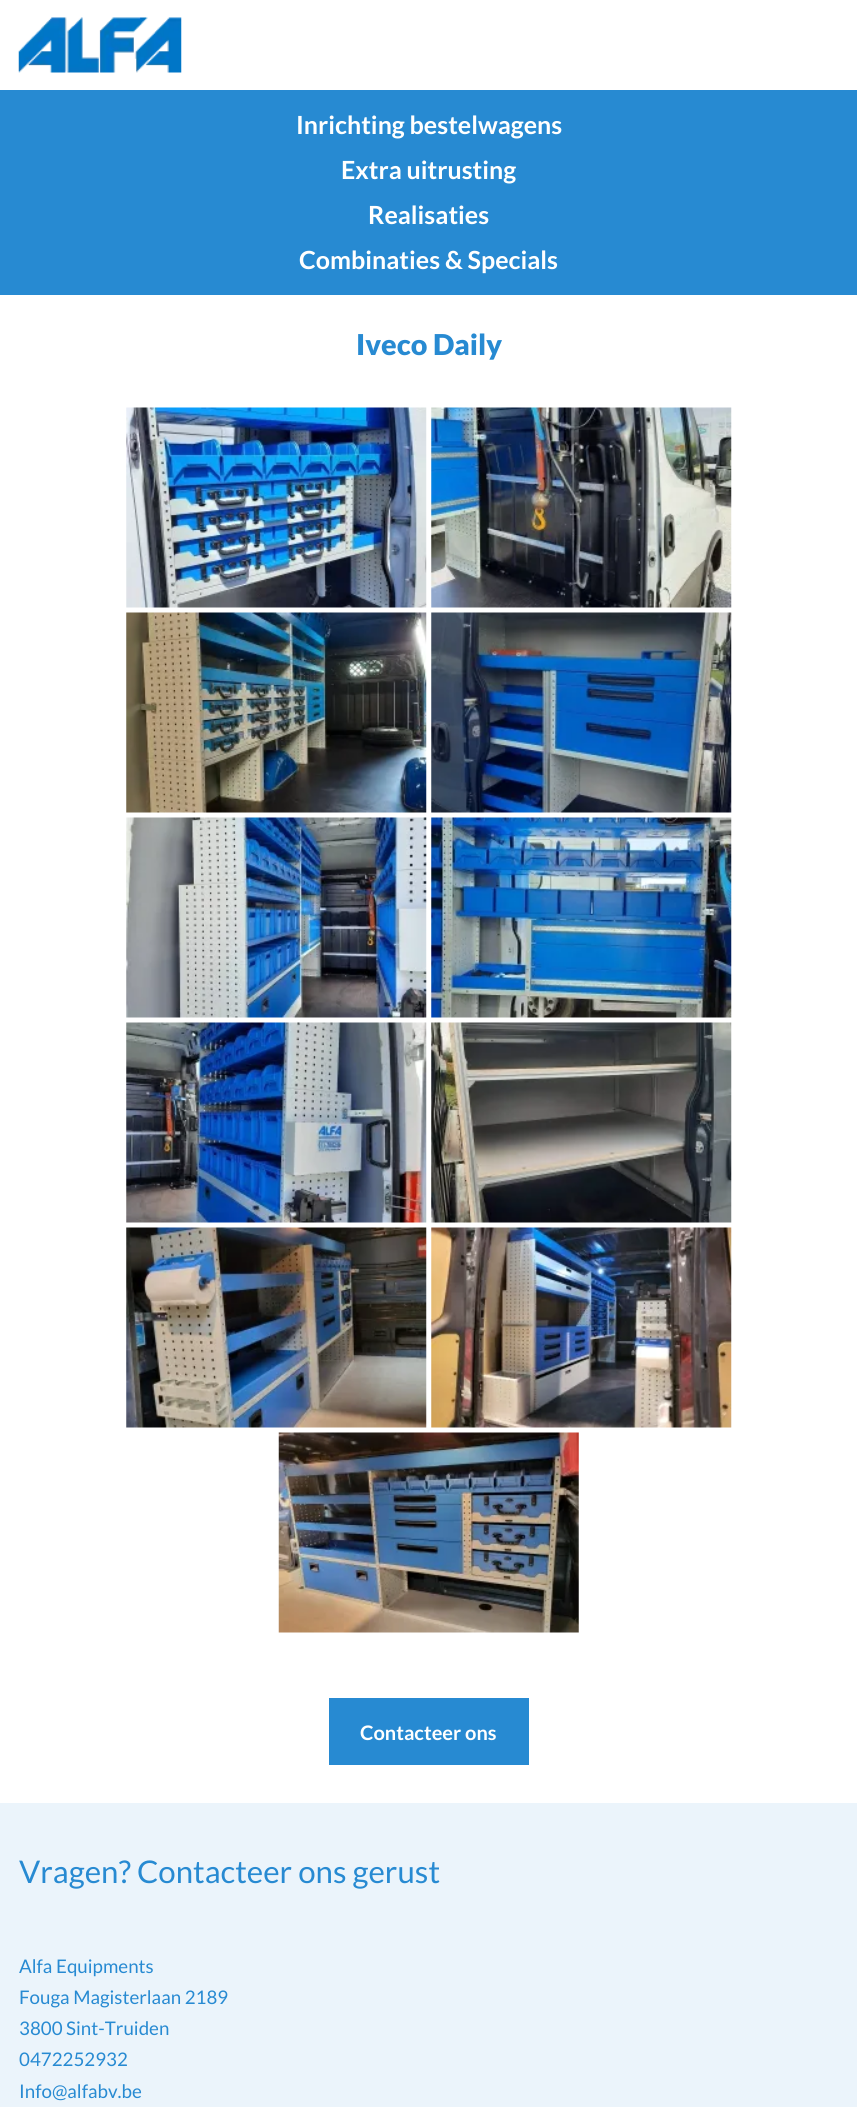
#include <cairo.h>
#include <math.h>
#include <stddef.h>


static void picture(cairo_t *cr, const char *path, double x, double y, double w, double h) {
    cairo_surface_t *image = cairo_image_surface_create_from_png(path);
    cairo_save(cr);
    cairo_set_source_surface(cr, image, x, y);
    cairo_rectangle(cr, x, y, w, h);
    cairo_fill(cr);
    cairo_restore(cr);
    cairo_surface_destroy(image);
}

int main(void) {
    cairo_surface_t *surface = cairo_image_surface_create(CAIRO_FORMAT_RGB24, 857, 2107);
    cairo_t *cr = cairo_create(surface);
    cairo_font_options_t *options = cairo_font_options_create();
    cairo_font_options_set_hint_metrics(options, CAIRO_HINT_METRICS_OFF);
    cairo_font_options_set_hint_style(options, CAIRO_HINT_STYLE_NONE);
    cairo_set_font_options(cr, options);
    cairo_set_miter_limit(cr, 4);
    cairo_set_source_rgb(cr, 1, 1, 1);
    cairo_paint(cr);
    picture(cr, "img1.png", 18, 17, 164, 56);
    cairo_set_source_rgb(cr, 0.153, 0.541, 0.824);
    cairo_rectangle(cr, 0, 90, 857, 205);
    cairo_fill(cr);
    cairo_select_font_face(cr, "Lato", CAIRO_FONT_SLANT_NORMAL, CAIRO_FONT_WEIGHT_BOLD);
    cairo_set_font_size(cr, 25);
    cairo_set_source_rgb(cr, 1, 1, 1);
    cairo_move_to(cr, 296, 134);
    cairo_show_text(cr, "Inrichting bestelwagens");
    cairo_move_to(cr, 341, 179);
    cairo_show_text(cr, "Extra uitrusting");
    cairo_move_to(cr, 368, 224);
    cairo_show_text(cr, "Realisaties");
    cairo_move_to(cr, 299, 269);
    cairo_show_text(cr, "Combinaties & Specials");
    cairo_select_font_face(cr, "Lato Black", CAIRO_FONT_SLANT_NORMAL, CAIRO_FONT_WEIGHT_NORMAL);
    cairo_set_font_size(cr, 28.75);
    cairo_set_source_rgb(cr, 0.153, 0.541, 0.824);
    cairo_move_to(cr, 356, 355);
    cairo_show_text(cr, "Iveco Daily");
    picture(cr, "img2.png", 126, 407, 301, 201);
    picture(cr, "img3.png", 431, 407, 301, 201);
    picture(cr, "img4.png", 126, 612, 301, 201);
    picture(cr, "img5.png", 431, 612, 301, 201);
    picture(cr, "img6.png", 126, 817, 301, 201);
    picture(cr, "img7.png", 431, 817, 301, 201);
    picture(cr, "img8.png", 126, 1022, 301, 201);
    picture(cr, "img9.png", 431, 1022, 301, 201);
    picture(cr, "img10.png", 126, 1227, 301, 201);
    picture(cr, "img11.png", 431, 1227, 301, 201);
    picture(cr, "img12.png", 278, 1432, 301, 201);
    cairo_rectangle(cr, 329, 1698, 200, 67);
    cairo_fill(cr);
    cairo_select_font_face(cr, "Lato", CAIRO_FONT_SLANT_NORMAL, CAIRO_FONT_WEIGHT_BOLD);
    cairo_set_font_size(cr, 20);
    cairo_set_source_rgb(cr, 1, 1, 1);
    cairo_move_to(cr, 360, 1740);
    cairo_show_text(cr, "Contacteer ons");
    cairo_set_source_rgb(cr, 0.918, 0.957, 0.984);
    cairo_rectangle(cr, 0, 1803, 857, 304);
    cairo_fill(cr);
    cairo_select_font_face(cr, "Lato", CAIRO_FONT_SLANT_NORMAL, CAIRO_FONT_WEIGHT_NORMAL);
    cairo_set_font_size(cr, 31.25);
    cairo_set_source_rgb(cr, 0.153, 0.541, 0.824);
    cairo_move_to(cr, 19, 1883);
    cairo_show_text(cr, "Vragen? Contacteer ons gerust");
    cairo_set_font_size(cr, 18.75);
    cairo_move_to(cr, 19, 1973);
    cairo_show_text(cr, "Alfa Equipments");
    cairo_move_to(cr, 19, 2004);
    cairo_show_text(cr, "Fouga Magisterlaan 2189");
    cairo_move_to(cr, 19, 2035);
    cairo_show_text(cr, "3800 Sint-Truiden");
    cairo_move_to(cr, 19, 2066);
    cairo_show_text(cr, "0472252932");
    cairo_move_to(cr, 19, 2098);
    cairo_show_text(cr, "Info@alfabv.be");
    cairo_surface_write_to_png(surface, "page.png");
    cairo_font_options_destroy(options);
    cairo_destroy(cr);
    cairo_surface_destroy(surface);
    return 0;
}
